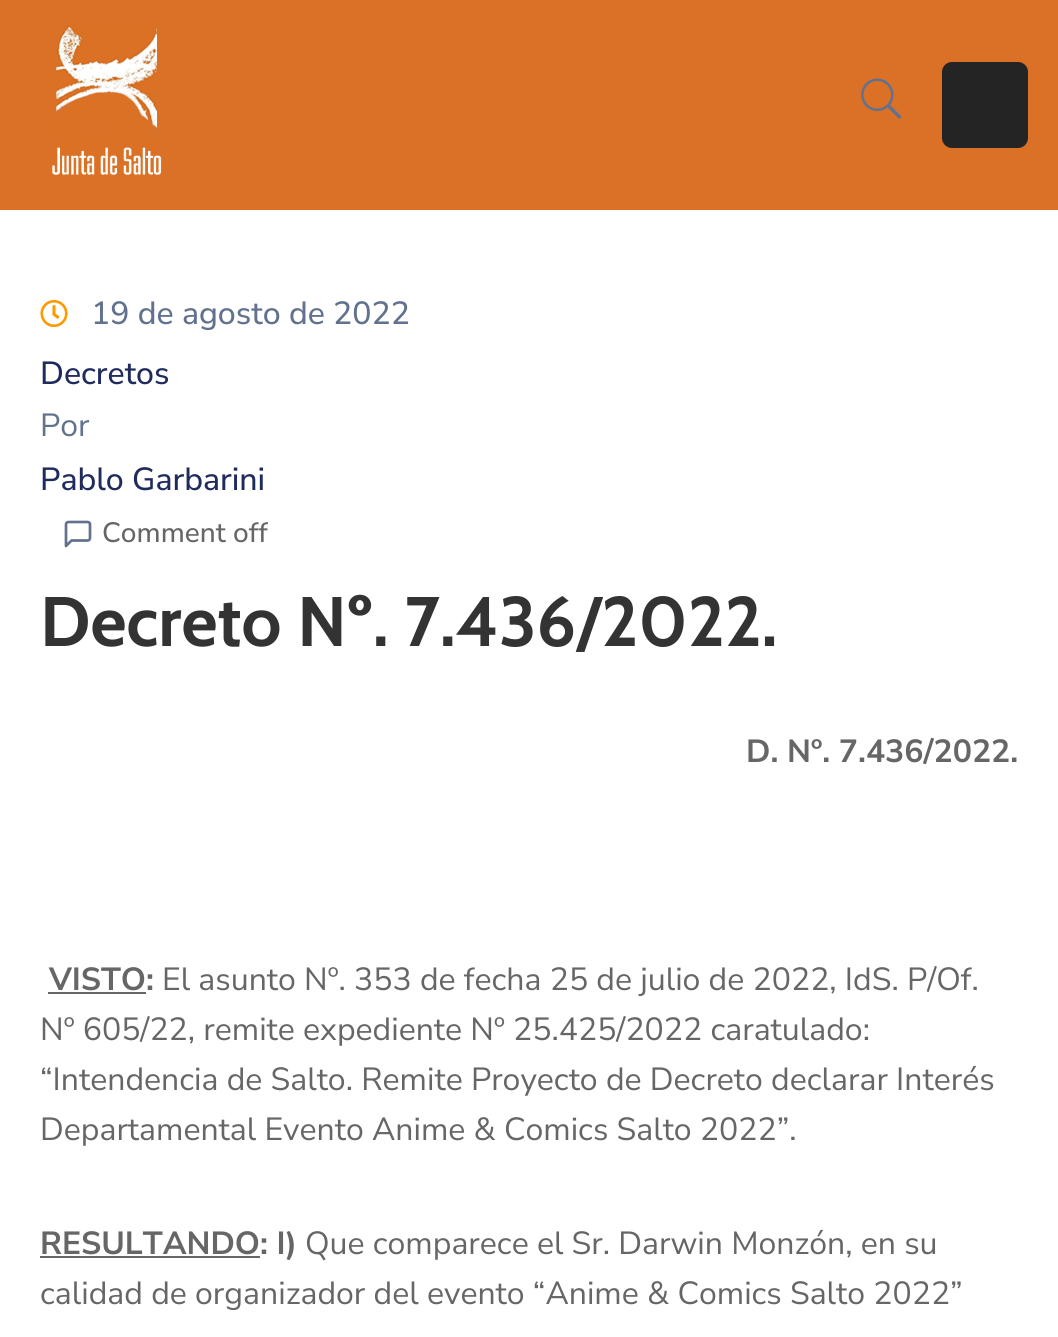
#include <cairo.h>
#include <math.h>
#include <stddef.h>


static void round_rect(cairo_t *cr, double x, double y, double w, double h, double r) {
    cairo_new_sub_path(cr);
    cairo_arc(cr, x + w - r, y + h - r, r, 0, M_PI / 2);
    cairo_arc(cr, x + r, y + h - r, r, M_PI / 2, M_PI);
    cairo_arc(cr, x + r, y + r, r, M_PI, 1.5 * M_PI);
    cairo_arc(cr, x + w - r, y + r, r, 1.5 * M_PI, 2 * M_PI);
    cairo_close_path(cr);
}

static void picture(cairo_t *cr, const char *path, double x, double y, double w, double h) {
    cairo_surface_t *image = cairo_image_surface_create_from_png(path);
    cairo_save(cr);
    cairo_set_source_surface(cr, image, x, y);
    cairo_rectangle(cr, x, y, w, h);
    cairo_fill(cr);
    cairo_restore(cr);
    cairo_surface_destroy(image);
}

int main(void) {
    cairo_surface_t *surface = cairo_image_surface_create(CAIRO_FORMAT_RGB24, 1058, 1337);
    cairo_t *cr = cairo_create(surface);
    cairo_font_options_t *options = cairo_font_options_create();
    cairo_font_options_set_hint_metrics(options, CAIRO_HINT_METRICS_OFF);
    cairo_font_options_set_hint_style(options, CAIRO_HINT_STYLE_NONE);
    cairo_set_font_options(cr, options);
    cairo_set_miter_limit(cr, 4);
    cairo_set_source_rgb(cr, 1, 1, 1);
    cairo_paint(cr);
    cairo_set_source_rgb(cr, 0.859, 0.443, 0.153);
    cairo_rectangle(cr, 0, 0, 1058, 210);
    cairo_fill(cr);
    picture(cr, "img1.png", 52, 25, 110, 150);
    picture(cr, "img2.png", 861, 78, 41, 41);
    cairo_set_source_rgb(cr, 0.141, 0.141, 0.141);
    round_rect(cr, 942, 62, 86, 86, 10);
    cairo_fill(cr);
    picture(cr, "img3.png", 40, 300, 28, 27);
    cairo_select_font_face(cr, "Nunito Sans Medium", CAIRO_FONT_SLANT_NORMAL, CAIRO_FONT_WEIGHT_NORMAL);
    cairo_set_font_size(cr, 32);
    cairo_set_source_rgb(cr, 0.384, 0.443, 0.553);
    cairo_move_to(cr, 91, 324);
    cairo_show_text(cr, "19 de agosto de 2022");
    cairo_set_source_rgb(cr, 0.125, 0.169, 0.365);
    cairo_move_to(cr, 40, 384);
    cairo_show_text(cr, "Decretos");
    cairo_select_font_face(cr, "Nunito Sans", CAIRO_FONT_SLANT_NORMAL, CAIRO_FONT_WEIGHT_NORMAL);
    cairo_set_source_rgb(cr, 0.384, 0.443, 0.553);
    cairo_move_to(cr, 40, 436);
    cairo_show_text(cr, "Por");
    cairo_select_font_face(cr, "Nunito Sans Medium", CAIRO_FONT_SLANT_NORMAL, CAIRO_FONT_WEIGHT_NORMAL);
    cairo_set_source_rgb(cr, 0.125, 0.169, 0.365);
    cairo_move_to(cr, 40, 490);
    cairo_show_text(cr, "Pablo Garbarini");
    cairo_set_font_size(cr, 28);
    cairo_set_source_rgb(cr, 0.4, 0.4, 0.4);
    cairo_move_to(cr, 102, 542);
    cairo_show_text(cr, "Comment off");
    cairo_new_path(cr);
    cairo_move_to(cr, 90, 538);
    cairo_curve_to(cr, 90, 539.5, 89, 540.5, 87.5, 540.5);
    cairo_line_to(cr, 71.5, 540.5);
    cairo_line_to(cr, 66, 546);
    cairo_line_to(cr, 66, 524.5);
    cairo_curve_to(cr, 66, 523, 67, 522, 68.5, 522);
    cairo_line_to(cr, 87.5, 522);
    cairo_curve_to(cr, 89, 522, 90, 523, 90, 524.5);
    cairo_close_path(cr);
    cairo_set_source_rgb(cr, 0.384, 0.443, 0.553);
    cairo_set_line_width(cr, 2.7);
    cairo_set_line_cap(cr, CAIRO_LINE_CAP_ROUND);
    cairo_set_line_join(cr, CAIRO_LINE_JOIN_ROUND);
    cairo_stroke(cr);
    cairo_select_font_face(cr, "Cabin", CAIRO_FONT_SLANT_NORMAL, CAIRO_FONT_WEIGHT_BOLD);
    cairo_set_font_size(cr, 70);
    cairo_set_source_rgb(cr, 0.2, 0.2, 0.2);
    cairo_move_to(cr, 40, 646);
    cairo_show_text(cr, "Decreto Nº. 7.436/2022.");
    cairo_select_font_face(cr, "Nunito Sans", CAIRO_FONT_SLANT_NORMAL, CAIRO_FONT_WEIGHT_BOLD);
    cairo_set_font_size(cr, 32);
    cairo_set_source_rgb(cr, 0.4, 0.4, 0.4);
    cairo_move_to(cr, 746, 762);
    cairo_show_text(cr, "D. Nº. 7.436/2022.");
    cairo_move_to(cr, 49, 990);
    cairo_show_text(cr, "VISTO:");
    cairo_rectangle(cr, 48, 992, 98, 2);
    cairo_fill(cr);
    cairo_select_font_face(cr, "Nunito Sans", CAIRO_FONT_SLANT_NORMAL, CAIRO_FONT_WEIGHT_NORMAL);
    cairo_move_to(cr, 162, 990);
    cairo_show_text(cr, "El asunto Nº. 353 de fecha 25 de julio de 2022, IdS. P/Of.");
    cairo_move_to(cr, 40, 1040);
    cairo_show_text(cr, "Nº 605/22, remite expediente Nº 25.425/2022 caratulado:");
    cairo_move_to(cr, 40, 1090);
    cairo_show_text(cr, "“Intendencia de Salto. Remite Proyecto de Decreto declarar Interés");
    cairo_move_to(cr, 40, 1140);
    cairo_show_text(cr, "Departamental Evento Anime & Comics Salto 2022”.");
    cairo_rectangle(cr, 40, 1256, 220, 2);
    cairo_fill(cr);
    cairo_select_font_face(cr, "Nunito Sans", CAIRO_FONT_SLANT_NORMAL, CAIRO_FONT_WEIGHT_BOLD);
    cairo_move_to(cr, 40, 1254);
    cairo_show_text(cr, "RESULTANDO: I)");
    cairo_select_font_face(cr, "Nunito Sans", CAIRO_FONT_SLANT_NORMAL, CAIRO_FONT_WEIGHT_NORMAL);
    cairo_move_to(cr, 305, 1254);
    cairo_show_text(cr, "Que comparece el Sr. Darwin Monzón, en su");
    cairo_move_to(cr, 40, 1304);
    cairo_show_text(cr, "calidad de organizador del evento “Anime & Comics Salto 2022”");
    cairo_surface_write_to_png(surface, "page.png");
    cairo_font_options_destroy(options);
    cairo_destroy(cr);
    cairo_surface_destroy(surface);
    return 0;
}
